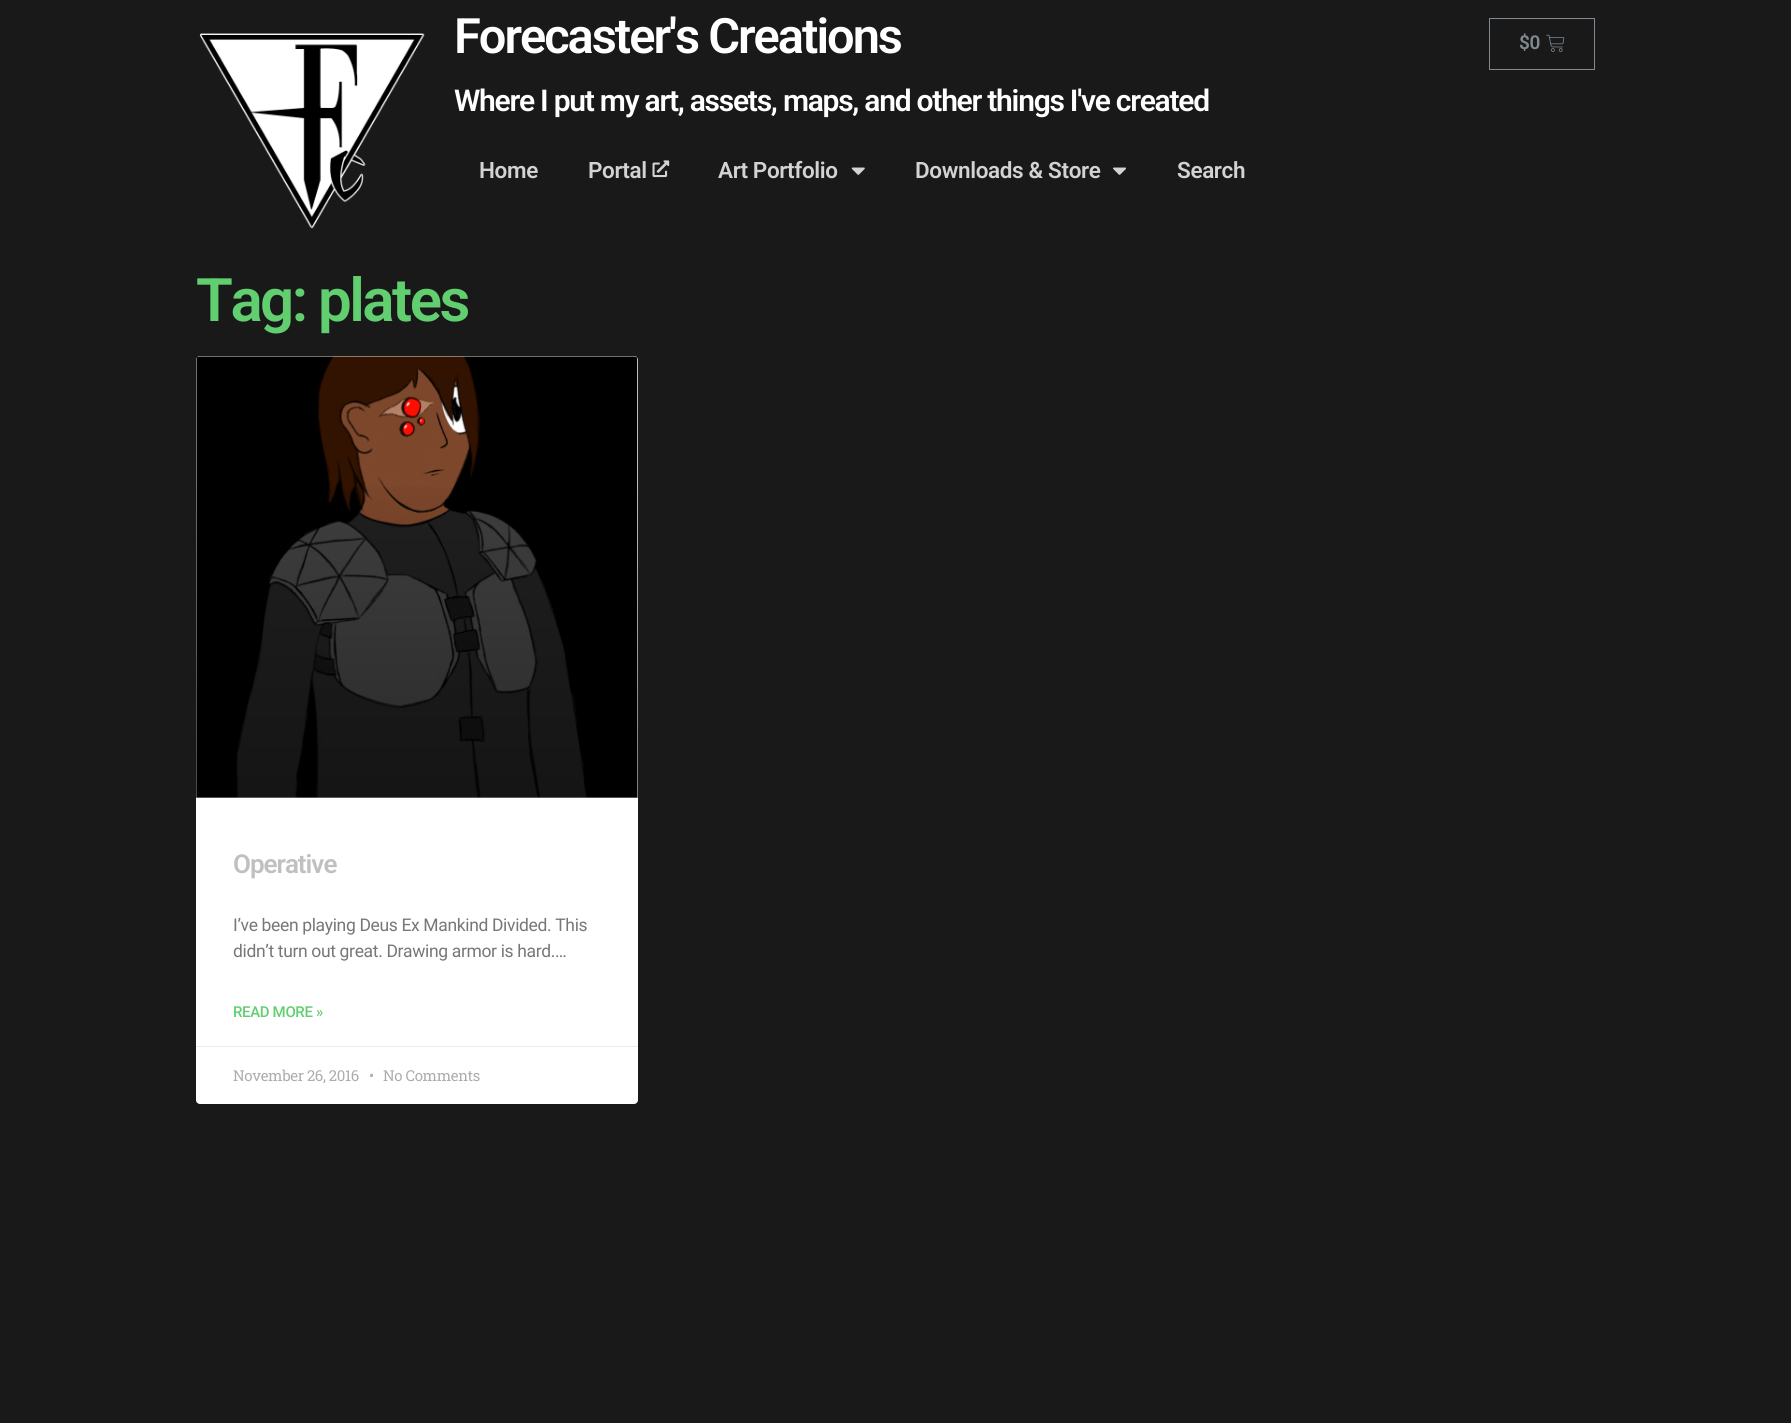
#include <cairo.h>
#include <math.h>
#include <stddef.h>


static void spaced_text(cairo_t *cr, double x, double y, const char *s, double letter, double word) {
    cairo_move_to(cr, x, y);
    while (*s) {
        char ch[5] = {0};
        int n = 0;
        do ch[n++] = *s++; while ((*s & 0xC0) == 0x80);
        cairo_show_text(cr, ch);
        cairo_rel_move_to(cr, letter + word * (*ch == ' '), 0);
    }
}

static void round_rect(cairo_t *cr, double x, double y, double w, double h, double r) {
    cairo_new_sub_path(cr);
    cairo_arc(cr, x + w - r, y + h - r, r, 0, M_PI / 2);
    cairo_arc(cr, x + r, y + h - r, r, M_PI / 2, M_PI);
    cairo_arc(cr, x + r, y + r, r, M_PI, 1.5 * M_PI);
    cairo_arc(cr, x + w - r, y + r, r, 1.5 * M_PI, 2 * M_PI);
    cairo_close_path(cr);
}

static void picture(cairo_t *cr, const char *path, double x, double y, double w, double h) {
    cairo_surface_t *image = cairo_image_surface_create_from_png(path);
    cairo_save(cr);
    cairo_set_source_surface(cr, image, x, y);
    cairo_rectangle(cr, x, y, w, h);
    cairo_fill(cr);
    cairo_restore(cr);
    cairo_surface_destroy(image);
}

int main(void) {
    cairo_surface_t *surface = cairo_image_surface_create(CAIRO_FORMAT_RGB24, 1791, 1423);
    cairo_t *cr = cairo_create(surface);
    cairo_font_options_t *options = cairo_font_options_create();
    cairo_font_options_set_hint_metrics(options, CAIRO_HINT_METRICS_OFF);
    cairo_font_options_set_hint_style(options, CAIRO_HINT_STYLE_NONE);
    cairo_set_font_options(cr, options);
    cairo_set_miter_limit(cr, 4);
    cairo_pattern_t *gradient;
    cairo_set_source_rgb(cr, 0.098, 0.098, 0.098);
    cairo_paint(cr);
    picture(cr, "img1.png", 199, 33, 226, 196);
    cairo_select_font_face(cr, "Roboto SemiBold", CAIRO_FONT_SLANT_NORMAL, CAIRO_FONT_WEIGHT_NORMAL);
    cairo_set_font_size(cr, 48.75);
    cairo_set_source_rgb(cr, 1, 1, 1);
    spaced_text(cr, 454, 53, "Forecaster's Creations", -2, 0);
    cairo_rectangle(cr, 1489.5, 18.5, 105, 51);
    cairo_set_source_rgb(cr, 0.506, 0.541, 0.569);
    cairo_set_line_width(cr, 1);
    cairo_stroke(cr);
    cairo_set_font_size(cr, 19);
    spaced_text(cr, 1519, 49, "$0", -0.35, 0);
    picture(cr, "img2.png", 1546, 34, 19, 18);
    cairo_set_font_size(cr, 30);
    cairo_set_source_rgb(cr, 1, 1, 1);
    spaced_text(cr, 454, 111, "Where I put my art, assets, maps, and other things I've created", -1.25, 0);
    cairo_set_font_size(cr, 22.5);
    cairo_set_source_rgb(cr, 0.827, 0.827, 0.827);
    spaced_text(cr, 479, 178, "Home", -0.35, 0);
    spaced_text(cr, 588, 178, "Portal", -0.35, 0);
    picture(cr, "img3.png", 652, 160, 18, 18);
    spaced_text(cr, 718, 178, "Art Portfolio", -0.35, 0);
    picture(cr, "img4.png", 851, 167, 14, 8);
    spaced_text(cr, 915, 178, "Downloads & Store", -0.35, 0);
    picture(cr, "img5.png", 1113, 167, 13, 8);
    spaced_text(cr, 1177, 178, "Search", -0.35, 0);
    cairo_set_font_size(cr, 60);
    cairo_set_source_rgb(cr, 0.38, 0.808, 0.439);
    spaced_text(cr, 196, 321, "Tag: plates", -2.5, 0);
    cairo_set_source_rgb(cr, 1, 1, 1);
    round_rect(cr, 196, 356, 442, 748, 4);
    cairo_fill(cr);
    picture(cr, "img6.png", 196, 356, 442, 442);
    gradient = cairo_pattern_create_linear(417, 798, 417, 356);
    cairo_pattern_add_color_stop_rgba(gradient, 0, 0, 0, 0, 0.35);
    cairo_pattern_add_color_stop_rgba(gradient, 0.75, 0, 0, 0, 0);
    cairo_set_source(cr, gradient);
    cairo_pattern_destroy(gradient);
    cairo_rectangle(cr, 196, 487, 442, 311);
    cairo_fill(cr);
    cairo_set_font_size(cr, 26);
    cairo_set_source_rgb(cr, 0.753, 0.753, 0.753);
    spaced_text(cr, 233, 873, "Operative", -1, 0);
    cairo_select_font_face(cr, "Roboto", CAIRO_FONT_SLANT_NORMAL, CAIRO_FONT_WEIGHT_NORMAL);
    cairo_set_font_size(cr, 17.5);
    cairo_set_source_rgb(cr, 0.467, 0.467, 0.467);
    spaced_text(cr, 233, 931, "I’ve been playing Deus Ex Mankind Divided. This", -0.35, 0);
    spaced_text(cr, 233, 957, "didn’t turn out great. Drawing armor is hard.…", -0.35, 0);
    cairo_select_font_face(cr, "Roboto Medium", CAIRO_FONT_SLANT_NORMAL, CAIRO_FONT_WEIGHT_NORMAL);
    cairo_set_font_size(cr, 15);
    cairo_set_source_rgb(cr, 0.38, 0.808, 0.439);
    spaced_text(cr, 233, 1017, "READ MORE »", -0.35, 0);
    cairo_set_source_rgb(cr, 0.918, 0.918, 0.918);
    cairo_rectangle(cr, 196, 1046, 442, 1);
    cairo_fill(cr);
    cairo_select_font_face(cr, "Roboto Slab", CAIRO_FONT_SLANT_NORMAL, CAIRO_FONT_WEIGHT_NORMAL);
    cairo_set_source_rgb(cr, 0.678, 0.678, 0.678);
    spaced_text(cr, 233, 1081, "November 26, 2016", -0.35, 0);
    spaced_text(cr, 369, 1081, "•", -0.35, 0);
    spaced_text(cr, 383, 1081, "No Comments", -0.35, 0);
    cairo_surface_write_to_png(surface, "page.png");
    cairo_font_options_destroy(options);
    cairo_destroy(cr);
    cairo_surface_destroy(surface);
    return 0;
}
